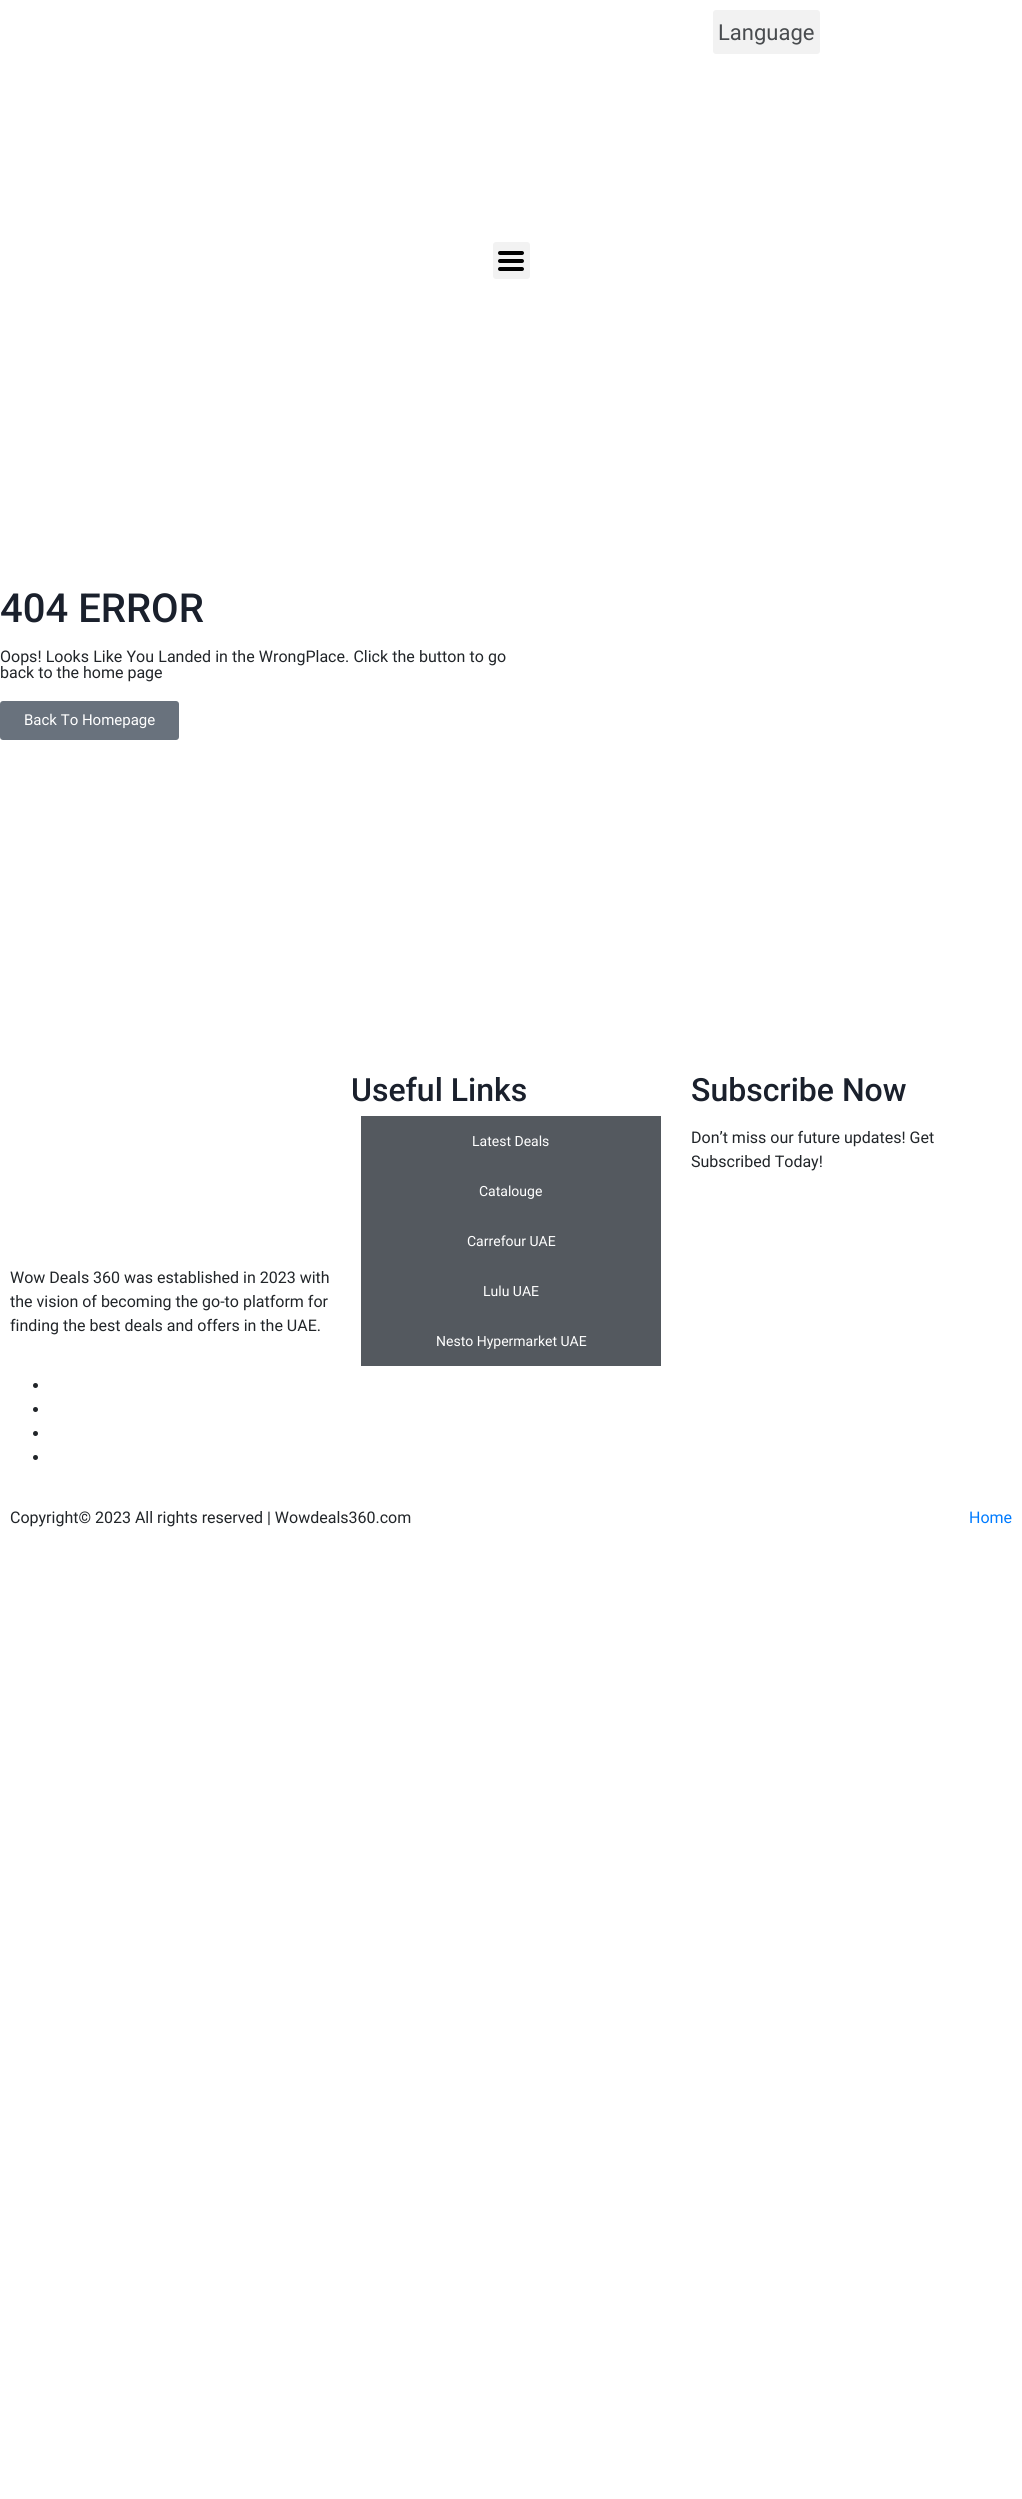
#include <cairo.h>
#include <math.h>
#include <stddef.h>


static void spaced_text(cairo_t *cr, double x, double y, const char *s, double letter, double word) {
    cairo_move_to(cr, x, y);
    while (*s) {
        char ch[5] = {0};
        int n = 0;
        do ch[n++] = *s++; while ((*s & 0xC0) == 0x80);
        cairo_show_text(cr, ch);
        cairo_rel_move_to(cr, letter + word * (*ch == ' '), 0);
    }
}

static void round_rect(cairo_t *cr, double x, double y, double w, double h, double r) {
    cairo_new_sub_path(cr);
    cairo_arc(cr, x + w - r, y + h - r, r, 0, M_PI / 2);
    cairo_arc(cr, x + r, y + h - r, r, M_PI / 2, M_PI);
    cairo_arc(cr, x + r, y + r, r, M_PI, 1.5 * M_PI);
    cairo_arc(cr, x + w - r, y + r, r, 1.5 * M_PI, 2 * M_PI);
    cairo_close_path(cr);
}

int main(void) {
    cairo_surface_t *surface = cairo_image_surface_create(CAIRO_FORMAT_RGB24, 1022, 2499);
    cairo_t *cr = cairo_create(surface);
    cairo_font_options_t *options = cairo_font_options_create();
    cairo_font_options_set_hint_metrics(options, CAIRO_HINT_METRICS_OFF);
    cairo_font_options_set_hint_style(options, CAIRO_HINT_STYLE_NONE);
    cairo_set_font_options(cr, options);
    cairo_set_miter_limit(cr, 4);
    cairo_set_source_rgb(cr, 1, 1, 1);
    cairo_paint(cr);
    cairo_set_source_rgb(cr, 0.949, 0.949, 0.949);
    round_rect(cr, 713, 10, 107, 44, 3);
    cairo_fill(cr);
    cairo_select_font_face(cr, "Roboto", CAIRO_FONT_SLANT_NORMAL, CAIRO_FONT_WEIGHT_NORMAL);
    cairo_set_font_size(cr, 22);
    cairo_set_source_rgb(cr, 0.286, 0.298, 0.31);
    cairo_move_to(cr, 718, 40);
    cairo_show_text(cr, "Language");
    cairo_set_source_rgb(cr, 0.949, 0.949, 0.949);
    round_rect(cr, 493, 242, 37, 37, 3);
    cairo_fill(cr);
    cairo_set_source_rgb(cr, 0, 0, 0);
    round_rect(cr, 498, 259, 26, 4, 2);
    cairo_fill(cr);
    round_rect(cr, 498, 251, 26, 4, 2);
    cairo_fill(cr);
    round_rect(cr, 498, 267, 26, 4, 2);
    cairo_fill(cr);
    cairo_select_font_face(cr, "Roboto Medium", CAIRO_FONT_SLANT_NORMAL, CAIRO_FONT_WEIGHT_NORMAL);
    cairo_set_font_size(cr, 40);
    cairo_set_source_rgb(cr, 0.102, 0.125, 0.173);
    cairo_move_to(cr, 0, 622);
    cairo_show_text(cr, "404 ERROR");
    cairo_select_font_face(cr, "Roboto", CAIRO_FONT_SLANT_NORMAL, CAIRO_FONT_WEIGHT_NORMAL);
    cairo_set_font_size(cr, 16);
    cairo_set_source_rgb(cr, 0.129, 0.145, 0.161);
    spaced_text(cr, 0, 662, "Oops! Looks Like You Landed in the WrongPlace. Click the button to go", 0, 0.25);
    cairo_move_to(cr, 0, 678);
    cairo_show_text(cr, "back to the home page");
    cairo_set_source_rgb(cr, 0.412, 0.447, 0.49);
    round_rect(cr, 0, 701, 179, 39, 3);
    cairo_fill(cr);
    cairo_set_font_size(cr, 15);
    cairo_set_source_rgb(cr, 1, 1, 1);
    cairo_move_to(cr, 24, 725);
    cairo_show_text(cr, "Back To Homepage");
    cairo_select_font_face(cr, "Roboto Medium", CAIRO_FONT_SLANT_NORMAL, CAIRO_FONT_WEIGHT_NORMAL);
    cairo_set_font_size(cr, 32);
    cairo_set_source_rgb(cr, 0.102, 0.125, 0.173);
    cairo_move_to(cr, 351, 1101);
    cairo_show_text(cr, "Useful Links");
    cairo_set_source_rgb(cr, 0.329, 0.349, 0.373);
    cairo_rectangle(cr, 361, 1116, 300, 250);
    cairo_fill(cr);
    cairo_select_font_face(cr, "Roboto", CAIRO_FONT_SLANT_NORMAL, CAIRO_FONT_WEIGHT_NORMAL);
    cairo_set_font_size(cr, 14);
    cairo_set_source_rgb(cr, 1, 1, 1);
    cairo_move_to(cr, 472, 1146);
    cairo_show_text(cr, "Latest Deals");
    cairo_move_to(cr, 479, 1196);
    cairo_show_text(cr, "Catalouge");
    cairo_move_to(cr, 467, 1246);
    cairo_show_text(cr, "Carrefour UAE");
    cairo_move_to(cr, 483, 1296);
    cairo_show_text(cr, "Lulu UAE");
    cairo_move_to(cr, 436, 1346);
    cairo_show_text(cr, "Nesto Hypermarket UAE");
    cairo_select_font_face(cr, "Roboto Medium", CAIRO_FONT_SLANT_NORMAL, CAIRO_FONT_WEIGHT_NORMAL);
    cairo_set_font_size(cr, 32);
    cairo_set_source_rgb(cr, 0.102, 0.125, 0.173);
    cairo_move_to(cr, 691, 1101);
    cairo_show_text(cr, "Subscribe Now");
    cairo_select_font_face(cr, "Roboto", CAIRO_FONT_SLANT_NORMAL, CAIRO_FONT_WEIGHT_NORMAL);
    cairo_set_font_size(cr, 16);
    cairo_set_source_rgb(cr, 0.129, 0.145, 0.161);
    cairo_move_to(cr, 691, 1143);
    cairo_show_text(cr, "Don’t miss our future updates! Get");
    cairo_move_to(cr, 691, 1167);
    cairo_show_text(cr, "Subscribed Today!");
    cairo_move_to(cr, 10, 1283);
    cairo_show_text(cr, "Wow Deals 360 was established in 2023 with");
    cairo_move_to(cr, 10, 1307);
    cairo_show_text(cr, "the vision of becoming the go-to platform for");
    cairo_move_to(cr, 10, 1331);
    cairo_show_text(cr, "finding the best deals and offers in the UAE.");
    cairo_new_path(cr);
    cairo_arc(cr, 35.5, 1385.5, 2.5, 0, 2 * M_PI);
    cairo_fill(cr);
    cairo_arc(cr, 35.5, 1409.5, 2.5, 0, 2 * M_PI);
    cairo_fill(cr);
    cairo_arc(cr, 35.5, 1433.5, 2.5, 0, 2 * M_PI);
    cairo_fill(cr);
    cairo_arc(cr, 35.5, 1457.5, 2.5, 0, 2 * M_PI);
    cairo_fill(cr);
    cairo_move_to(cr, 10, 1523);
    cairo_show_text(cr, "Copyright© 2023 All rights reserved | Wowdeals360.com");
    cairo_set_source_rgb(cr, 0, 0.482, 1);
    cairo_move_to(cr, 969, 1523);
    cairo_show_text(cr, "Home");
    cairo_surface_write_to_png(surface, "page.png");
    cairo_font_options_destroy(options);
    cairo_destroy(cr);
    cairo_surface_destroy(surface);
    return 0;
}
